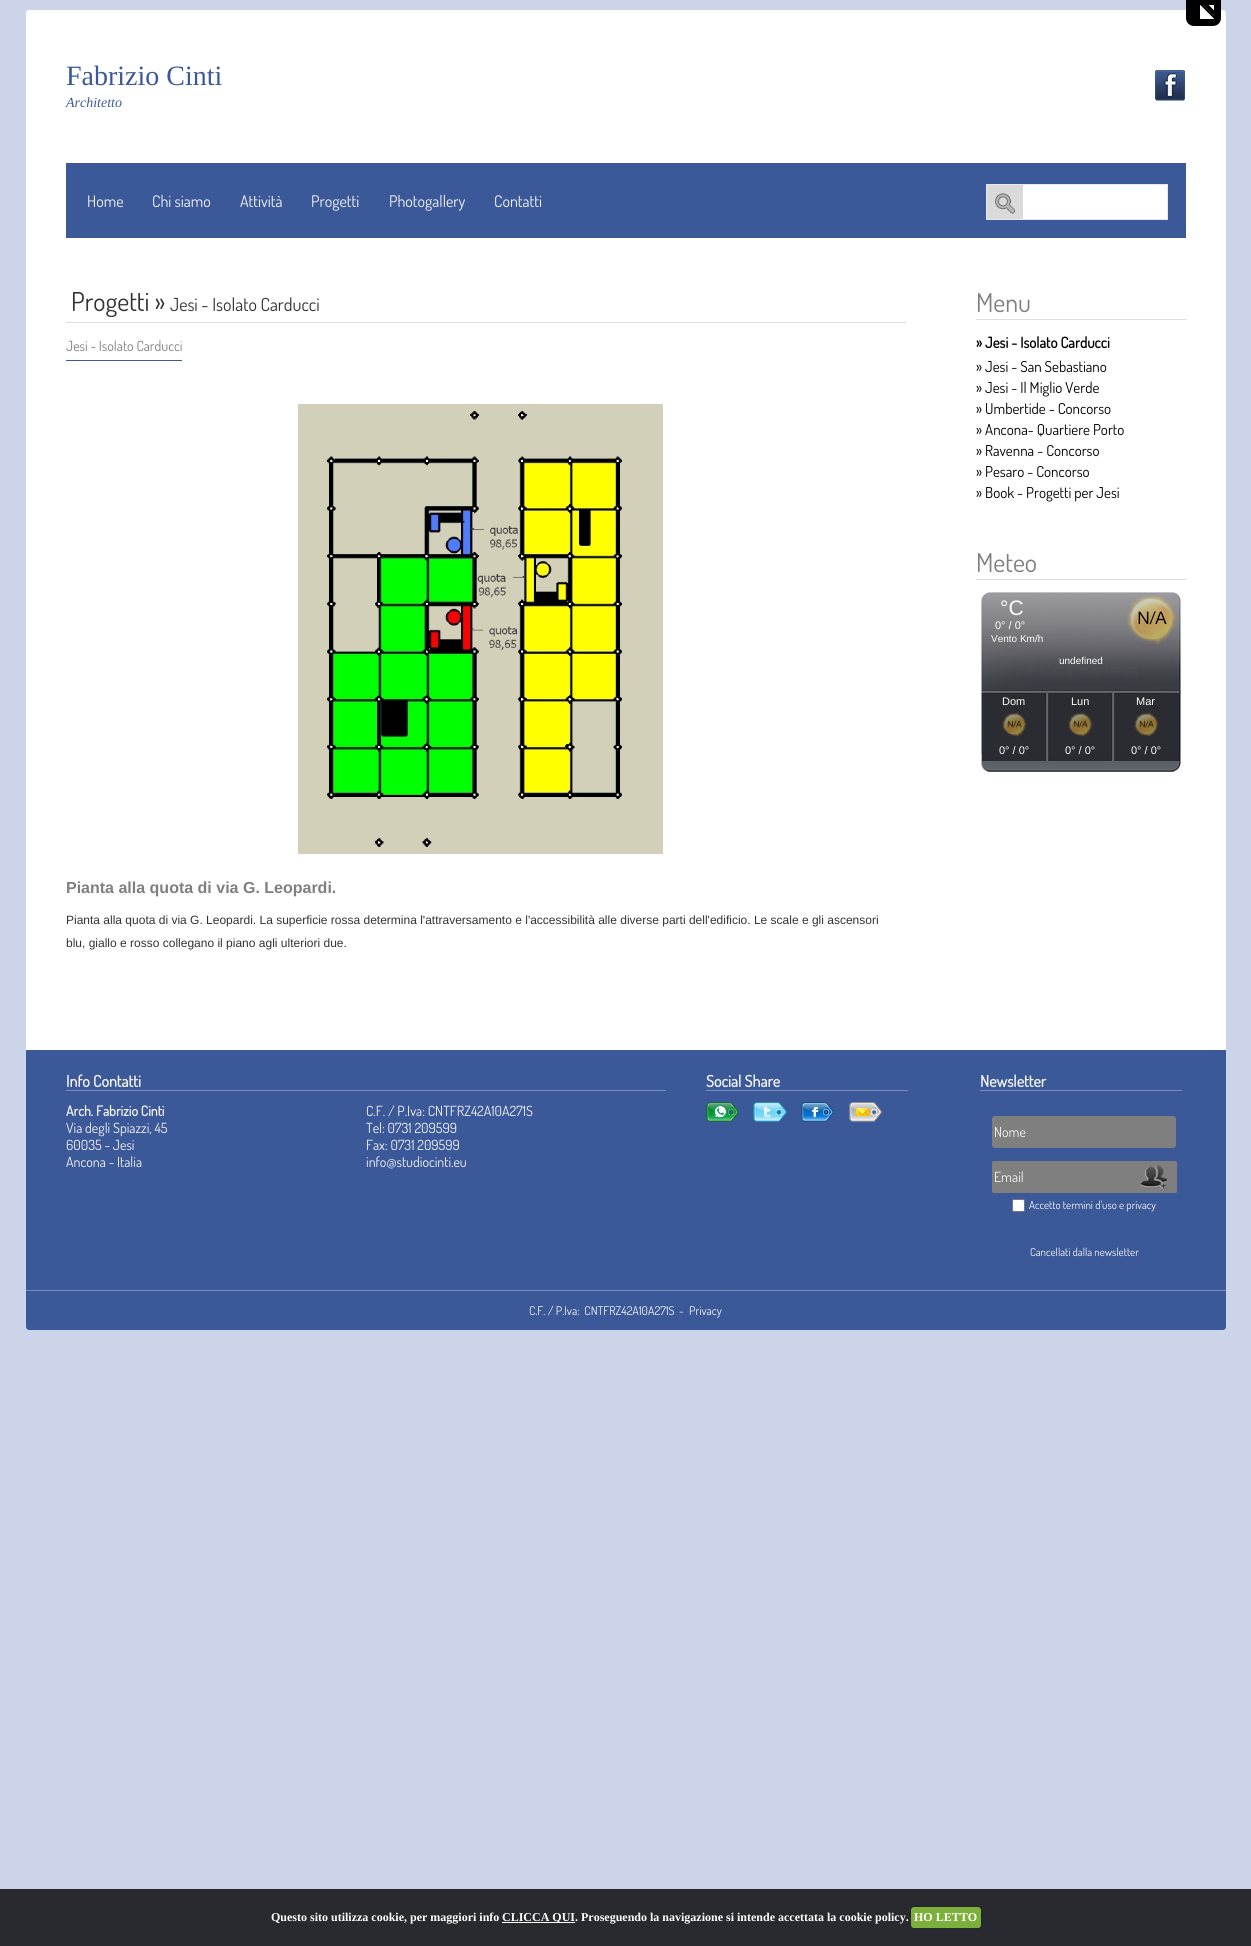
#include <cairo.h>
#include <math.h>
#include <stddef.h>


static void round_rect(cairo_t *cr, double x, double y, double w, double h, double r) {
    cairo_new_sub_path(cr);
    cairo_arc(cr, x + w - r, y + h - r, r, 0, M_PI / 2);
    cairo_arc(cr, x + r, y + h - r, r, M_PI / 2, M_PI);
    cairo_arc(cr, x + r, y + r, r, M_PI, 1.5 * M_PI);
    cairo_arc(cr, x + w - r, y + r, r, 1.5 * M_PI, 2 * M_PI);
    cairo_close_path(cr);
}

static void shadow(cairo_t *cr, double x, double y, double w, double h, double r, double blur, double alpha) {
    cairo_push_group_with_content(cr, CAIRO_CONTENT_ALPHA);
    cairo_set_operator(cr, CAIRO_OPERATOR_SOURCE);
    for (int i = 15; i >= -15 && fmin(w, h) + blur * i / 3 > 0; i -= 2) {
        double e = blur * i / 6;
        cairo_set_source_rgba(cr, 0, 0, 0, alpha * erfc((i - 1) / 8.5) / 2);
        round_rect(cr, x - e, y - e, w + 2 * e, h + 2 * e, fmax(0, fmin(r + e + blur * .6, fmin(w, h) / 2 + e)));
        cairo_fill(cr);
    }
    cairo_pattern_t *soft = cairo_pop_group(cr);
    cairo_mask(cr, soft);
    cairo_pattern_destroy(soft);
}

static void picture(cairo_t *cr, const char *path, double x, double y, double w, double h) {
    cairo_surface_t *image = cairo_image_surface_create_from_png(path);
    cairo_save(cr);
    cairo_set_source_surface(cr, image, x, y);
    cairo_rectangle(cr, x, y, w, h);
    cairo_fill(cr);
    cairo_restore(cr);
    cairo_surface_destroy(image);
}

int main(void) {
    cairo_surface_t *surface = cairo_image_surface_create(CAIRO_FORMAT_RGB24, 1251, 1946);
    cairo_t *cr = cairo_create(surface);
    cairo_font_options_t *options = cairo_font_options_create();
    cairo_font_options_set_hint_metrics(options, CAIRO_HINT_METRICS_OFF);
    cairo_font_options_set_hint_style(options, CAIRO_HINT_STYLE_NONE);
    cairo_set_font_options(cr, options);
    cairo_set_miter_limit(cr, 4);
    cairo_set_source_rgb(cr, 0.8, 0.831, 0.914);
    cairo_paint(cr);
    cairo_set_source_rgb(cr, 1, 1, 1);
    cairo_new_path(cr);
    cairo_move_to(cr, 29, 10);
    cairo_line_to(cr, 1223, 10);
    cairo_curve_to(cr, 1224.5, 10, 1226, 11.5, 1226, 13);
    cairo_line_to(cr, 1226, 148);
    cairo_line_to(cr, 26, 148);
    cairo_line_to(cr, 26, 13);
    cairo_curve_to(cr, 26, 11.5, 27.5, 10, 29, 10);
    cairo_close_path(cr);
    cairo_fill(cr);
    cairo_set_source_rgb(cr, 0, 0, 0);
    cairo_new_path(cr);
    cairo_move_to(cr, 1186, 0);
    cairo_line_to(cr, 1221, 0);
    cairo_line_to(cr, 1221, 18);
    cairo_curve_to(cr, 1221, 22.5, 1217.5, 26, 1213, 26);
    cairo_line_to(cr, 1194, 26);
    cairo_curve_to(cr, 1189.5, 26, 1186, 22.5, 1186, 18);
    cairo_close_path(cr);
    cairo_fill(cr);
    picture(cr, "img1.png", 1200, 5, 14, 14);
    cairo_select_font_face(cr, "Liberation Serif", CAIRO_FONT_SLANT_NORMAL, CAIRO_FONT_WEIGHT_NORMAL);
    cairo_set_font_size(cr, 28);
    cairo_set_source_rgb(cr, 0.231, 0.349, 0.596);
    cairo_move_to(cr, 66, 85);
    cairo_show_text(cr, "Fabrizio Cinti");
    cairo_select_font_face(cr, "Liberation Serif", CAIRO_FONT_SLANT_ITALIC, CAIRO_FONT_WEIGHT_NORMAL);
    cairo_set_font_size(cr, 14);
    cairo_move_to(cr, 66, 107);
    cairo_show_text(cr, "Architetto");
    picture(cr, "img2.png", 1155, 70, 30, 31);
    cairo_set_source_rgb(cr, 1, 1, 1);
    cairo_new_path(cr);
    cairo_move_to(cr, 26, 148);
    cairo_line_to(cr, 1226, 148);
    cairo_line_to(cr, 1226, 1324);
    cairo_curve_to(cr, 1226, 1327.5, 1223.5, 1330, 1220, 1330);
    cairo_line_to(cr, 32, 1330);
    cairo_curve_to(cr, 28.5, 1330, 26, 1327.5, 26, 1324);
    cairo_close_path(cr);
    cairo_fill(cr);
    cairo_set_source_rgb(cr, 0.231, 0.349, 0.596);
    cairo_rectangle(cr, 66, 163, 1120, 75);
    cairo_fill(cr);
    cairo_select_font_face(cr, "Dosis", CAIRO_FONT_SLANT_NORMAL, CAIRO_FONT_WEIGHT_NORMAL);
    cairo_set_font_size(cr, 16);
    cairo_set_source_rgb(cr, 0.949, 0.949, 0.949);
    cairo_move_to(cr, 87, 207);
    cairo_show_text(cr, "Home");
    cairo_move_to(cr, 152, 207);
    cairo_show_text(cr, "Chi siamo");
    cairo_move_to(cr, 240, 207);
    cairo_show_text(cr, "Attività");
    cairo_move_to(cr, 311, 207);
    cairo_show_text(cr, "Progetti");
    cairo_move_to(cr, 389, 207);
    cairo_show_text(cr, "Photogallery");
    cairo_move_to(cr, 494, 207);
    cairo_show_text(cr, "Contatti");
    cairo_set_source_rgb(cr, 0.855, 0.855, 0.855);
    cairo_rectangle(cr, 987, 185, 36, 34);
    cairo_fill(cr);
    picture(cr, "img3.png", 995, 185, 172, 34);
    cairo_rectangle(cr, 986.5, 184.5, 181, 35);
    cairo_set_source_rgb(cr, 0.906, 0.906, 0.906);
    cairo_set_line_width(cr, 1);
    cairo_stroke(cr);
    cairo_set_source_rgb(cr, 0.871, 0.871, 0.871);
    cairo_rectangle(cr, 66, 322, 840, 1);
    cairo_fill(cr);
    cairo_set_font_size(cr, 26);
    cairo_set_source_rgb(cr, 0.2, 0.2, 0.2);
    cairo_move_to(cr, 71, 311);
    cairo_show_text(cr, "Progetti »");
    cairo_set_font_size(cr, 18);
    cairo_move_to(cr, 170, 311);
    cairo_show_text(cr, "Jesi - Isolato Carducci");
    cairo_set_font_size(cr, 14);
    cairo_set_source_rgb(cr, 0.498, 0.498, 0.498);
    cairo_move_to(cr, 66, 351);
    cairo_show_text(cr, "Jesi - Isolato Carducci");
    cairo_set_source_rgb(cr, 0.231, 0.349, 0.596);
    cairo_rectangle(cr, 66, 360, 116, 1);
    cairo_fill(cr);
    picture(cr, "img4.png", 298, 404, 365, 450);
    cairo_select_font_face(cr, "Liberation Sans", CAIRO_FONT_SLANT_NORMAL, CAIRO_FONT_WEIGHT_BOLD);
    cairo_set_font_size(cr, 16);
    cairo_set_source_rgb(cr, 0.498, 0.498, 0.498);
    cairo_move_to(cr, 66, 893);
    cairo_show_text(cr, "Pianta alla quota di via G. Leopardi.");
    cairo_select_font_face(cr, "Liberation Sans", CAIRO_FONT_SLANT_NORMAL, CAIRO_FONT_WEIGHT_NORMAL);
    cairo_set_font_size(cr, 12);
    cairo_set_source_rgb(cr, 0.2, 0.2, 0.2);
    cairo_move_to(cr, 66, 924);
    cairo_show_text(cr, "Pianta alla quota di via G. Leopardi. La superficie rossa determina l'attraversamento e l'accessibilità alle diverse parti dell'edificio. Le scale e gli ascensori");
    cairo_move_to(cr, 66, 947);
    cairo_show_text(cr, "blu, giallo e rosso collegano il piano agli ulteriori due.");
    cairo_set_source_rgb(cr, 0.871, 0.871, 0.871);
    cairo_rectangle(cr, 976, 319, 210, 1);
    cairo_fill(cr);
    cairo_select_font_face(cr, "Dosis", CAIRO_FONT_SLANT_NORMAL, CAIRO_FONT_WEIGHT_NORMAL);
    cairo_set_font_size(cr, 26);
    cairo_set_source_rgb(cr, 0.498, 0.498, 0.498);
    cairo_move_to(cr, 976, 312);
    cairo_show_text(cr, "Menu");
    cairo_select_font_face(cr, "Dosis", CAIRO_FONT_SLANT_NORMAL, CAIRO_FONT_WEIGHT_BOLD);
    cairo_set_font_size(cr, 15);
    cairo_set_source_rgb(cr, 0, 0, 0);
    cairo_move_to(cr, 976, 348);
    cairo_show_text(cr, "» Jesi - Isolato Carducci");
    cairo_select_font_face(cr, "Dosis", CAIRO_FONT_SLANT_NORMAL, CAIRO_FONT_WEIGHT_NORMAL);
    cairo_move_to(cr, 976, 372);
    cairo_show_text(cr, "» Jesi - San Sebastiano");
    cairo_move_to(cr, 976, 393);
    cairo_show_text(cr, "» Jesi - Il Miglio Verde");
    cairo_move_to(cr, 976, 414);
    cairo_show_text(cr, "» Umbertide - Concorso");
    cairo_move_to(cr, 976, 435);
    cairo_show_text(cr, "» Ancona- Quartiere Porto");
    cairo_move_to(cr, 976, 456);
    cairo_show_text(cr, "» Ravenna - Concorso");
    cairo_move_to(cr, 976, 477);
    cairo_show_text(cr, "» Pesaro - Concorso");
    cairo_move_to(cr, 976, 498);
    cairo_show_text(cr, "» Book - Progetti per Jesi");
    cairo_set_source_rgb(cr, 0.871, 0.871, 0.871);
    cairo_rectangle(cr, 976, 579, 210, 1);
    cairo_fill(cr);
    cairo_set_font_size(cr, 26);
    cairo_set_source_rgb(cr, 0.498, 0.498, 0.498);
    cairo_move_to(cr, 976, 572);
    cairo_show_text(cr, "Meteo");
    picture(cr, "img5.png", 981, 592, 200, 180);
    picture(cr, "img6.png", 1127, 594, 51, 51);
    cairo_select_font_face(cr, "Liberation Sans", CAIRO_FONT_SLANT_NORMAL, CAIRO_FONT_WEIGHT_NORMAL);
    cairo_set_font_size(cr, 21);
    cairo_set_source_rgb(cr, 1, 1, 1);
    cairo_move_to(cr, 1000, 615);
    cairo_show_text(cr, "°C");
    cairo_set_font_size(cr, 11);
    cairo_move_to(cr, 995, 629);
    cairo_show_text(cr, "0° / 0°");
    cairo_set_font_size(cr, 10);
    cairo_move_to(cr, 991, 642);
    cairo_show_text(cr, "Vento Km/h");
    cairo_move_to(cr, 1059, 664);
    cairo_show_text(cr, "undefined");
    cairo_set_font_size(cr, 11);
    cairo_move_to(cr, 1002, 705);
    cairo_show_text(cr, "Dom");
    picture(cr, "img7.png", 1002, 712, 25, 25);
    cairo_move_to(cr, 999, 754);
    cairo_show_text(cr, "0° / 0°");
    cairo_move_to(cr, 1071, 705);
    cairo_show_text(cr, "Lun");
    picture(cr, "img8.png", 1068, 712, 25, 25);
    cairo_move_to(cr, 1065, 754);
    cairo_show_text(cr, "0° / 0°");
    cairo_move_to(cr, 1136, 705);
    cairo_show_text(cr, "Mar");
    picture(cr, "img7.png", 1134, 712, 25, 25);
    cairo_move_to(cr, 1131, 754);
    cairo_show_text(cr, "0° / 0°");
    cairo_set_source_rgb(cr, 0.231, 0.349, 0.596);
    cairo_rectangle(cr, 26, 1050, 1200, 240);
    cairo_fill(cr);
    cairo_set_source_rgb(cr, 0.482, 0.557, 0.718);
    cairo_rectangle(cr, 66, 1090, 600, 1);
    cairo_fill(cr);
    cairo_select_font_face(cr, "Dosis", CAIRO_FONT_SLANT_NORMAL, CAIRO_FONT_WEIGHT_BOLD);
    cairo_set_font_size(cr, 16);
    cairo_set_source_rgb(cr, 0.949, 0.949, 0.949);
    cairo_move_to(cr, 66, 1087);
    cairo_show_text(cr, "Info Contatti");
    cairo_set_font_size(cr, 14);
    cairo_move_to(cr, 66, 1116);
    cairo_show_text(cr, "Arch. Fabrizio Cinti");
    cairo_select_font_face(cr, "Dosis", CAIRO_FONT_SLANT_NORMAL, CAIRO_FONT_WEIGHT_NORMAL);
    cairo_move_to(cr, 66, 1133);
    cairo_show_text(cr, "Via degli Spiazzi, 45");
    cairo_move_to(cr, 66, 1150);
    cairo_show_text(cr, "60035 - Jesi");
    cairo_move_to(cr, 66, 1167);
    cairo_show_text(cr, "Ancona - Italia");
    cairo_move_to(cr, 366, 1116);
    cairo_show_text(cr, "C.F. / P.Iva: CNTFRZ42A10A271S");
    cairo_move_to(cr, 366, 1133);
    cairo_show_text(cr, "Tel: 0731 209599");
    cairo_move_to(cr, 366, 1150);
    cairo_show_text(cr, "Fax: 0731 209599");
    cairo_move_to(cr, 366, 1167);
    cairo_show_text(cr, "info@studiocinti.eu");
    cairo_set_source_rgb(cr, 0.482, 0.557, 0.718);
    cairo_rectangle(cr, 706, 1090, 202, 1);
    cairo_fill(cr);
    cairo_select_font_face(cr, "Dosis", CAIRO_FONT_SLANT_NORMAL, CAIRO_FONT_WEIGHT_BOLD);
    cairo_set_font_size(cr, 16);
    cairo_set_source_rgb(cr, 0.949, 0.949, 0.949);
    cairo_move_to(cr, 706, 1087);
    cairo_show_text(cr, "Social Share");
    picture(cr, "img9.png", 706, 1102, 33, 20);
    picture(cr, "img10.png", 753, 1102, 34, 20);
    picture(cr, "img11.png", 801, 1102, 33, 20);
    picture(cr, "img12.png", 849, 1102, 33, 20);
    cairo_set_source_rgb(cr, 0.482, 0.557, 0.718);
    cairo_rectangle(cr, 980, 1090, 202, 1);
    cairo_fill(cr);
    cairo_set_source_rgb(cr, 0.949, 0.949, 0.949);
    cairo_move_to(cr, 980, 1087);
    cairo_show_text(cr, "Newsletter");
    cairo_set_source_rgb(cr, 0.498, 0.498, 0.498);
    round_rect(cr, 992, 1116, 184, 32, 3);
    cairo_fill(cr);
    cairo_select_font_face(cr, "Dosis", CAIRO_FONT_SLANT_NORMAL, CAIRO_FONT_WEIGHT_NORMAL);
    cairo_set_font_size(cr, 14);
    cairo_set_source_rgb(cr, 0.949, 0.949, 0.949);
    cairo_move_to(cr, 994, 1137);
    cairo_show_text(cr, "Nome");
    cairo_set_source_rgb(cr, 0.498, 0.498, 0.498);
    round_rect(cr, 992, 1161, 185, 32, 2);
    cairo_fill(cr);
    round_rect(cr, 992, 1161, 135, 32, 3);
    cairo_fill(cr);
    cairo_set_source_rgb(cr, 0.949, 0.949, 0.949);
    cairo_move_to(cr, 994, 1182);
    cairo_show_text(cr, "Email");
    picture(cr, "img13.png", 1141, 1165, 26, 24);
    cairo_set_source_rgb(cr, 1, 1, 1);
    round_rect(cr, 1012.5, 1199.5, 12, 12, 1.5);
    cairo_fill_preserve(cr);
    cairo_set_source_rgb(cr, 0.463, 0.463, 0.463);
    cairo_stroke(cr);
    cairo_set_font_size(cr, 11);
    cairo_set_source_rgb(cr, 0.949, 0.949, 0.949);
    cairo_move_to(cr, 1029, 1209);
    cairo_show_text(cr, "Accetto termini d'uso e privacy");
    cairo_move_to(cr, 1030, 1256);
    cairo_show_text(cr, "Cancellati dalla newsletter");
    cairo_set_source_rgb(cr, 0.231, 0.349, 0.596);
    cairo_new_path(cr);
    cairo_move_to(cr, 26, 1290);
    cairo_line_to(cr, 1226, 1290);
    cairo_line_to(cr, 1226, 1327);
    cairo_curve_to(cr, 1226, 1328.5, 1224.5, 1330, 1223, 1330);
    cairo_line_to(cr, 29, 1330);
    cairo_curve_to(cr, 27.5, 1330, 26, 1328.5, 26, 1327);
    cairo_close_path(cr);
    cairo_fill(cr);
    cairo_set_source_rgb(cr, 0.482, 0.557, 0.718);
    cairo_rectangle(cr, 26, 1290, 1200, 1);
    cairo_fill(cr);
    cairo_set_font_size(cr, 12);
    cairo_set_source_rgb(cr, 0.949, 0.949, 0.949);
    cairo_move_to(cr, 529, 1315);
    cairo_show_text(cr, "C.F. / P.Iva:  CNTFRZ42A10A271S");
    cairo_move_to(cr, 679, 1315);
    cairo_show_text(cr, "-");
    cairo_move_to(cr, 689, 1315);
    cairo_show_text(cr, "Privacy");
    cairo_set_source_rgb(cr, 0.161, 0.165, 0.184);
    cairo_rectangle(cr, 0, 1889, 1251, 57);
    cairo_fill(cr);
    cairo_select_font_face(cr, "Liberation Serif", CAIRO_FONT_SLANT_NORMAL, CAIRO_FONT_WEIGHT_BOLD);
    cairo_set_source_rgb(cr, 1, 1, 1);
    cairo_move_to(cr, 271, 1921);
    cairo_show_text(cr, "Questo sito utilizza cookie, per maggiori info");
    cairo_rectangle(cr, 502, 1922, 73, 1);
    cairo_fill(cr);
    cairo_move_to(cr, 502, 1921);
    cairo_show_text(cr, "CLICCA QUI. Proseguendo la navigazione si intende accettata la cookie policy.");
    cairo_set_source_rgb(cr, 0, 0, 0);
    shadow(cr, 911, 1907, 70, 21, 3, 1, 0.25);
    cairo_set_source_rgb(cr, 0.49, 0.686, 0.231);
    round_rect(cr, 911, 1907, 70, 21, 3);
    cairo_fill(cr);
    cairo_set_source_rgb(cr, 1, 1, 1);
    cairo_move_to(cr, 914, 1921);
    cairo_show_text(cr, "HO LETTO");
    cairo_surface_write_to_png(surface, "page.png");
    cairo_font_options_destroy(options);
    cairo_destroy(cr);
    cairo_surface_destroy(surface);
    return 0;
}
